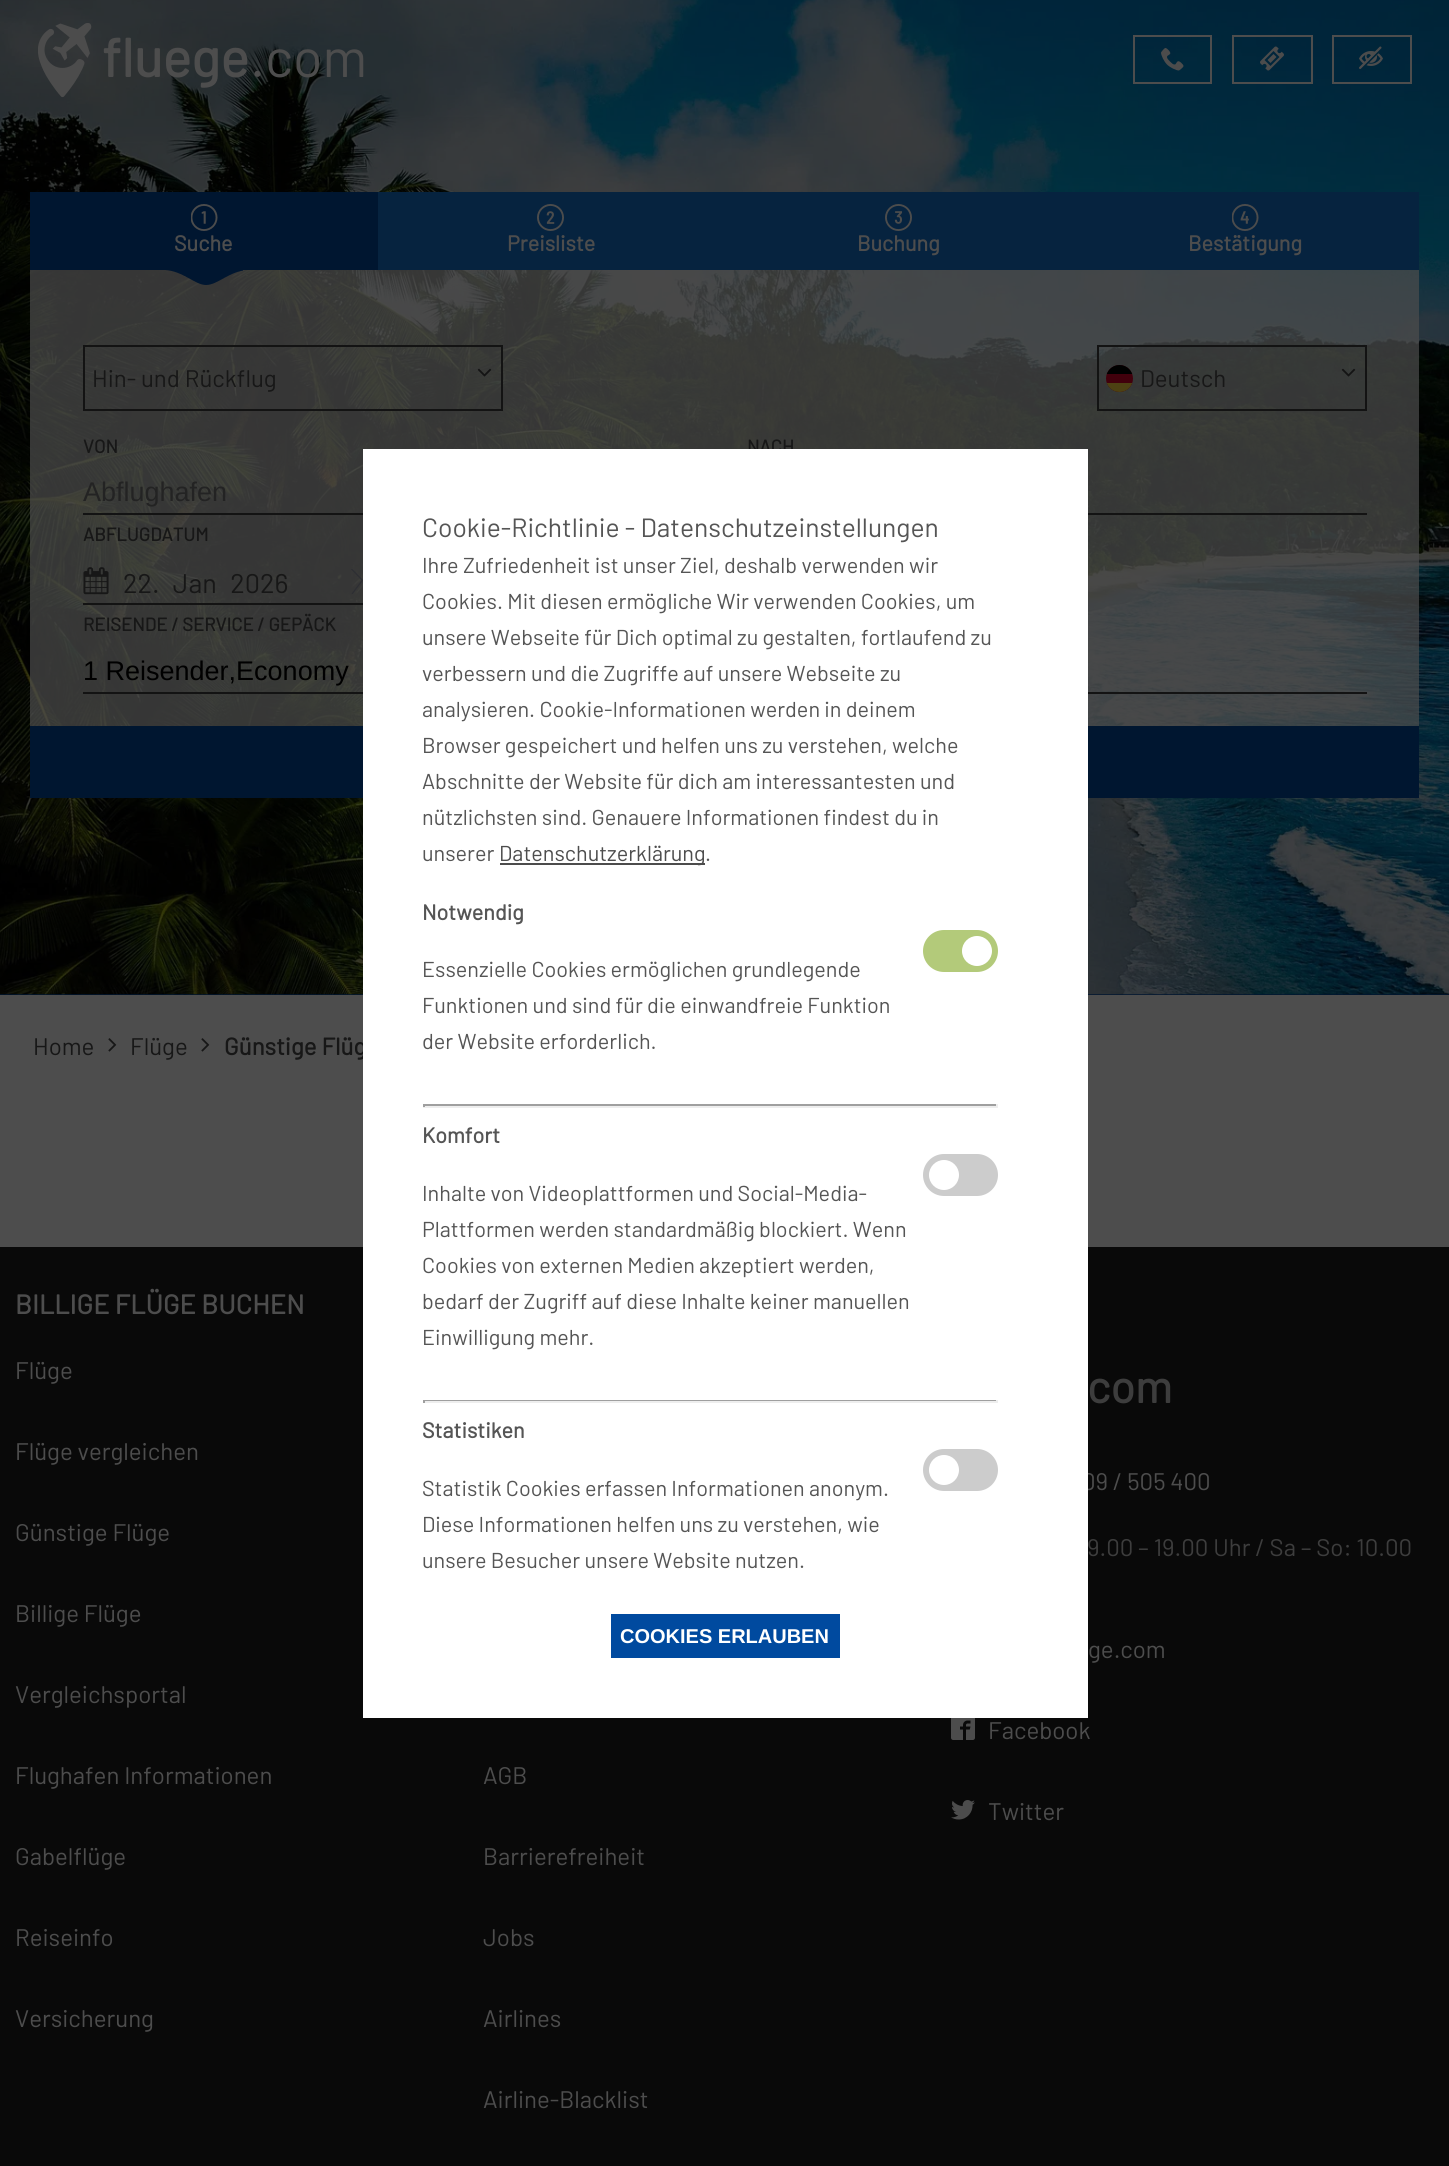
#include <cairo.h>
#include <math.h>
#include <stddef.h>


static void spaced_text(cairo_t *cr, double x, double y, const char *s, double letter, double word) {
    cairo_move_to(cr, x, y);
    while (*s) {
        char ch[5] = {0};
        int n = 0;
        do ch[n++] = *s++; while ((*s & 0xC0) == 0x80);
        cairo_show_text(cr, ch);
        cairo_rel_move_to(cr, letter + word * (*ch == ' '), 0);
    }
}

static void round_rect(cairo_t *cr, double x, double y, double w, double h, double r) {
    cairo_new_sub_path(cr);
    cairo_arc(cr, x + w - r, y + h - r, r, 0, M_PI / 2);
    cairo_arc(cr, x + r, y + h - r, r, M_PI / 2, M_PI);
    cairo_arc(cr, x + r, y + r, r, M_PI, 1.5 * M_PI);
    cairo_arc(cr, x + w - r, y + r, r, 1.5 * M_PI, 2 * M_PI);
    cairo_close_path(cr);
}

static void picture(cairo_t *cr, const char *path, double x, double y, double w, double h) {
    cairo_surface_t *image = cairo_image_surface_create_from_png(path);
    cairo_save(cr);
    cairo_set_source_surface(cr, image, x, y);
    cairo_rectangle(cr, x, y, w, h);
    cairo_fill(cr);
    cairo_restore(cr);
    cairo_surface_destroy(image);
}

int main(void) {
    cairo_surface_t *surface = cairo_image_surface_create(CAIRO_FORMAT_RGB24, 1449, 2166);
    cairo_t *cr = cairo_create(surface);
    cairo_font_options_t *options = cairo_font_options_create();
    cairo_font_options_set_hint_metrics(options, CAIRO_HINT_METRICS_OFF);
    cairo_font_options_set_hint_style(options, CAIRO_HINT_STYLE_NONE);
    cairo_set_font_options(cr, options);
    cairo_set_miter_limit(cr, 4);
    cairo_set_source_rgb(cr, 0.302, 0.302, 0.302);
    cairo_paint(cr);
    cairo_set_source_rgb(cr, 0, 0.086, 0.188);
    cairo_rectangle(cr, 0, 994, 1449, 1);
    cairo_fill(cr);
    picture(cr, "img5.png", 0, 0, 1449, 995);
    picture(cr, "img1.png", 38, 23, 54, 75);
    cairo_select_font_face(cr, "Barlow", CAIRO_FONT_SLANT_NORMAL, CAIRO_FONT_WEIGHT_BOLD);
    cairo_set_font_size(cr, 54);
    cairo_set_source_rgb(cr, 0.302, 0.302, 0.302);
    cairo_move_to(cr, 102, 77);
    cairo_show_text(cr, "fluege");
    cairo_select_font_face(cr, "Barlow", CAIRO_FONT_SLANT_NORMAL, CAIRO_FONT_WEIGHT_NORMAL);
    cairo_move_to(cr, 250, 77);
    cairo_show_text(cr, ".com");
    cairo_rectangle(cr, 1134, 36, 77, 47);
    cairo_stroke(cr);
    picture(cr, "img2.png", 1161, 48, 23, 23);
    cairo_rectangle(cr, 1233, 36, 79, 47);
    cairo_stroke(cr);
    picture(cr, "img3.png", 1260, 46, 24, 25);
    cairo_rectangle(cr, 1333, 36, 78, 47);
    cairo_stroke(cr);
    picture(cr, "img4.png", 1359, 46, 24, 23);
    cairo_set_source_rgba(cr, 0.302, 0.302, 0.302, 0.7);
    cairo_rectangle(cr, 30, 270, 1389, 456);
    cairo_fill(cr);
    cairo_set_source_rgb(cr, 0, 0.086, 0.188);
    cairo_rectangle(cr, 30, 192, 348, 78);
    cairo_fill(cr);
    picture(cr, "img6.png", 191, 204, 27, 27);
    cairo_select_font_face(cr, "Barlow", CAIRO_FONT_SLANT_NORMAL, CAIRO_FONT_WEIGHT_BOLD);
    cairo_set_font_size(cr, 21.6);
    cairo_set_source_rgb(cr, 0.302, 0.302, 0.302);
    cairo_move_to(cr, 174, 251);
    cairo_show_text(cr, "Suche");
    cairo_save(cr);
    cairo_rectangle(cr, 165, 267, 78, 18);
    cairo_clip(cr);
    cairo_set_source_rgb(cr, 0, 0.086, 0.188);
    cairo_new_path(cr);
    cairo_move_to(cr, 165, 267);
    cairo_line_to(cr, 248, 267);
    cairo_line_to(cr, 248, 270);
    cairo_curve_to(cr, 229, 271, 218, 285, 206, 285);
    cairo_curve_to(cr, 195, 285, 183, 271, 165, 270);
    cairo_close_path(cr);
    cairo_fill(cr);
    cairo_restore(cr);
    cairo_set_source_rgb(cr, 0.027, 0.137, 0.247);
    cairo_rectangle(cr, 378, 192, 1041, 78);
    cairo_fill(cr);
    picture(cr, "img7.png", 537, 204, 27, 27);
    cairo_set_source_rgb(cr, 0.302, 0.302, 0.302);
    cairo_move_to(cr, 507, 251);
    cairo_show_text(cr, "Preisliste");
    picture(cr, "img8.png", 885, 204, 27, 27);
    cairo_move_to(cr, 857, 251);
    cairo_show_text(cr, "Buchung");
    picture(cr, "img9.png", 1232, 204, 27, 27);
    cairo_move_to(cr, 1188, 251);
    cairo_show_text(cr, "Bestätigung");
    cairo_rectangle(cr, 84, 346, 418, 64);
    cairo_set_source_rgb(cr, 0.078, 0.078, 0.078);
    cairo_stroke(cr);
    cairo_select_font_face(cr, "Barlow", CAIRO_FONT_SLANT_NORMAL, CAIRO_FONT_WEIGHT_NORMAL);
    cairo_set_font_size(cr, 24);
    cairo_set_source_rgb(cr, 0.09, 0.09, 0.09);
    cairo_move_to(cr, 92, 387);
    cairo_show_text(cr, "Hin- und Rückflug");
    picture(cr, "img10.png", 477, 368, 15, 9);
    cairo_rectangle(cr, 1098, 346, 268, 64);
    cairo_set_source_rgb(cr, 0.078, 0.078, 0.078);
    cairo_stroke(cr);
    cairo_set_source_rgb(cr, 0.255, 0, 0.047);
    cairo_arc(cr, 1119.5, 378.5, 13.5, 0, 2 * M_PI);
    cairo_fill(cr);
    cairo_save(cr);
    round_rect(cr, 1106, 365, 27, 27, 13.5);
    cairo_clip(cr);
    cairo_set_source_rgb(cr, 0, 0, 0);
    cairo_rectangle(cr, 1106, 365, 27, 9);
    cairo_fill(cr);
    cairo_set_source_rgb(cr, 0.302, 0.255, 0.078);
    cairo_rectangle(cr, 1106, 383, 27, 9);
    cairo_fill(cr);
    cairo_restore(cr);
    cairo_set_source_rgb(cr, 0.09, 0.09, 0.09);
    cairo_move_to(cr, 1140, 387);
    cairo_show_text(cr, "Deutsch");
    picture(cr, "img11.png", 1341, 368, 15, 9);
    cairo_select_font_face(cr, "Barlow", CAIRO_FONT_SLANT_NORMAL, CAIRO_FONT_WEIGHT_BOLD);
    cairo_set_font_size(cr, 18.5);
    cairo_move_to(cr, 83, 453);
    cairo_show_text(cr, "VON");
    cairo_set_source_rgb(cr, 0.078, 0.078, 0.078);
    cairo_rectangle(cr, 83, 513, 280, 2);
    cairo_fill(cr);
    cairo_select_font_face(cr, "Liberation Sans", CAIRO_FONT_SLANT_NORMAL, CAIRO_FONT_WEIGHT_NORMAL);
    cairo_set_font_size(cr, 27);
    cairo_set_source_rgb(cr, 0.137, 0.137, 0.137);
    cairo_move_to(cr, 83, 501);
    cairo_show_text(cr, "Abflughafen");
    cairo_select_font_face(cr, "Barlow", CAIRO_FONT_SLANT_NORMAL, CAIRO_FONT_WEIGHT_BOLD);
    cairo_set_font_size(cr, 18.5);
    cairo_set_source_rgb(cr, 0.09, 0.09, 0.09);
    cairo_move_to(cr, 747, 453);
    cairo_show_text(cr, "NACH");
    cairo_set_source_rgb(cr, 0.078, 0.078, 0.078);
    cairo_rectangle(cr, 1088, 513, 279, 2);
    cairo_fill(cr);
    cairo_set_source_rgb(cr, 0.09, 0.09, 0.09);
    cairo_move_to(cr, 83, 541);
    cairo_show_text(cr, "ABFLUGDATUM");
    picture(cr, "img12.png", 351, 569, 12, 25);
    cairo_set_source_rgb(cr, 0.078, 0.078, 0.078);
    cairo_rectangle(cr, 83, 603, 280, 2);
    cairo_fill(cr);
    picture(cr, "img13.png", 83, 567, 26, 28);
    cairo_select_font_face(cr, "Barlow", CAIRO_FONT_SLANT_NORMAL, CAIRO_FONT_WEIGHT_NORMAL);
    cairo_set_font_size(cr, 27);
    cairo_set_source_rgb(cr, 0.09, 0.09, 0.09);
    spaced_text(cr, 123, 593, "22. Jan 2026", 0, 8);
    cairo_select_font_face(cr, "Barlow", CAIRO_FONT_SLANT_NORMAL, CAIRO_FONT_WEIGHT_BOLD);
    cairo_set_font_size(cr, 18.5);
    cairo_move_to(cr, 83, 631);
    cairo_show_text(cr, "REISENDE / SERVICE / GEPÄCK");
    cairo_set_source_rgb(cr, 0.078, 0.078, 0.078);
    cairo_rectangle(cr, 83, 692, 1284, 2);
    cairo_fill(cr);
    cairo_select_font_face(cr, "Liberation Sans", CAIRO_FONT_SLANT_NORMAL, CAIRO_FONT_WEIGHT_NORMAL);
    cairo_set_font_size(cr, 27);
    cairo_set_source_rgb(cr, 0, 0, 0);
    cairo_move_to(cr, 83, 680);
    cairo_show_text(cr, "1 Reisender,Economy");
    cairo_set_source_rgb(cr, 0, 0.086, 0.188);
    cairo_rectangle(cr, 30, 726, 1389, 72);
    cairo_fill(cr);
    cairo_select_font_face(cr, "Barlow", CAIRO_FONT_SLANT_NORMAL, CAIRO_FONT_WEIGHT_NORMAL);
    cairo_set_font_size(cr, 24);
    cairo_set_source_rgb(cr, 0.09, 0.09, 0.09);
    cairo_move_to(cr, 33, 1055);
    cairo_show_text(cr, "Home");
    picture(cr, "img14.png", 108, 1038, 9, 14);
    cairo_move_to(cr, 130, 1055);
    cairo_show_text(cr, "Flüge");
    picture(cr, "img14.png", 201, 1038, 9, 14);
    cairo_select_font_face(cr, "Barlow", CAIRO_FONT_SLANT_NORMAL, CAIRO_FONT_WEIGHT_BOLD);
    cairo_move_to(cr, 224, 1055);
    cairo_show_text(cr, "Günstige Flüg");
    cairo_set_source_rgb(cr, 0.039, 0.039, 0.039);
    cairo_rectangle(cr, 0, 1247, 1449, 919);
    cairo_fill(cr);
    cairo_select_font_face(cr, "Barlow", CAIRO_FONT_SLANT_NORMAL, CAIRO_FONT_WEIGHT_NORMAL);
    cairo_set_source_rgb(cr, 0.302, 0.302, 0.302);
    cairo_move_to(cr, 1082, 1490);
    cairo_show_text(cr, "09 / 505 400");
    cairo_set_source_rgb(cr, 1, 1, 1);
    cairo_rectangle(cr, 363, 449, 725, 1269);
    cairo_fill(cr);
    cairo_set_font_size(cr, 26.4);
    cairo_set_source_rgb(cr, 0.333, 0.333, 0.333);
    cairo_move_to(cr, 422, 537);
    cairo_show_text(cr, "Cookie-Richtlinie - Datenschutzeinstellungen");
    cairo_set_font_size(cr, 21.6);
    cairo_move_to(cr, 422, 573);
    cairo_show_text(cr, "Ihre Zufriedenheit ist unser Ziel, deshalb verwenden wir");
    cairo_move_to(cr, 422, 609);
    cairo_show_text(cr, "Cookies. Mit diesen ermögliche Wir verwenden Cookies, um");
    cairo_move_to(cr, 422, 645);
    cairo_show_text(cr, "unsere Webseite für Dich optimal zu gestalten, fortlaufend zu");
    cairo_move_to(cr, 422, 681);
    cairo_show_text(cr, "verbessern und die Zugriffe auf unsere Webseite zu");
    cairo_move_to(cr, 422, 717);
    cairo_show_text(cr, "analysieren. Cookie-Informationen werden in deinem");
    cairo_move_to(cr, 422, 753);
    cairo_show_text(cr, "Browser gespeichert und helfen uns zu verstehen,");
    cairo_move_to(cr, 892, 753);
    cairo_show_text(cr, "welche");
    cairo_move_to(cr, 422, 789);
    cairo_show_text(cr, "Abschnitte der Website für dich am interessantesten und");
    cairo_move_to(cr, 422, 825);
    cairo_show_text(cr, "nützlichsten sind. Genauere Informationen findest du in");
    cairo_move_to(cr, 422, 861);
    cairo_show_text(cr, "unserer");
    cairo_set_source_rgb(cr, 0.298, 0.298, 0.298);
    cairo_rectangle(cr, 500, 863, 205, 2);
    cairo_fill(cr);
    cairo_set_source_rgb(cr, 0.302, 0.302, 0.302);
    cairo_move_to(cr, 499, 861);
    cairo_show_text(cr, "Datenschutzerklärung");
    cairo_set_source_rgb(cr, 0.333, 0.333, 0.333);
    cairo_move_to(cr, 705, 861);
    cairo_show_text(cr, ".");
    cairo_select_font_face(cr, "Barlow", CAIRO_FONT_SLANT_NORMAL, CAIRO_FONT_WEIGHT_BOLD);
    cairo_move_to(cr, 422, 920);
    cairo_show_text(cr, "Notwendig");
    cairo_set_source_rgb(cr, 0.702, 0.792, 0.478);
    round_rect(cr, 923, 930, 75, 42, 21);
    cairo_fill(cr);
    cairo_set_source_rgb(cr, 1, 1, 1);
    cairo_arc(cr, 977, 951, 15, 0, 2 * M_PI);
    cairo_fill(cr);
    cairo_select_font_face(cr, "Barlow", CAIRO_FONT_SLANT_NORMAL, CAIRO_FONT_WEIGHT_NORMAL);
    cairo_set_source_rgb(cr, 0.333, 0.333, 0.333);
    cairo_move_to(cr, 422, 977);
    cairo_show_text(cr, "Essenzielle Cookies ermöglichen grundlegende");
    cairo_move_to(cr, 422, 1013);
    cairo_show_text(cr, "Funktionen und sind für die einwandfreie Funktion");
    cairo_move_to(cr, 422, 1049);
    cairo_show_text(cr, "der Website erforderlich.");
    cairo_set_source_rgb(cr, 0.624, 0.624, 0.624);
    cairo_rectangle(cr, 423, 1104, 575, 2);
    cairo_fill(cr);
    cairo_set_source_rgb(cr, 0.933, 0.933, 0.933);
    cairo_rectangle(cr, 996, 1104, 2, 3);
    cairo_fill(cr);
    cairo_rectangle(cr, 423, 1106, 575, 2);
    cairo_fill(cr);
    cairo_set_source_rgb(cr, 0.624, 0.624, 0.624);
    cairo_rectangle(cr, 423, 1104, 2, 3);
    cairo_fill(cr);
    cairo_select_font_face(cr, "Barlow", CAIRO_FONT_SLANT_NORMAL, CAIRO_FONT_WEIGHT_BOLD);
    cairo_set_source_rgb(cr, 0.333, 0.333, 0.333);
    cairo_move_to(cr, 422, 1143);
    cairo_show_text(cr, "Komfort");
    cairo_set_source_rgb(cr, 0.8, 0.8, 0.8);
    round_rect(cr, 923, 1154, 75, 42, 21);
    cairo_fill(cr);
    cairo_set_source_rgb(cr, 1, 1, 1);
    cairo_arc(cr, 944, 1175, 15, 0, 2 * M_PI);
    cairo_fill(cr);
    cairo_select_font_face(cr, "Barlow", CAIRO_FONT_SLANT_NORMAL, CAIRO_FONT_WEIGHT_NORMAL);
    cairo_set_source_rgb(cr, 0.333, 0.333, 0.333);
    cairo_move_to(cr, 422, 1201);
    cairo_show_text(cr, "Inhalte von Videoplattformen und Social-Media-");
    cairo_move_to(cr, 422, 1237);
    cairo_show_text(cr, "Plattformen werden standardmäßig blockiert. Wenn");
    cairo_move_to(cr, 422, 1273);
    cairo_show_text(cr, "Cookies von externen Medien akzeptiert werden,");
    cairo_move_to(cr, 422, 1309);
    cairo_show_text(cr, "bedarf der Zugriff auf diese Inhalte keiner manuellen");
    cairo_move_to(cr, 422, 1345);
    cairo_show_text(cr, "Einwilligung mehr.");
    cairo_set_source_rgb(cr, 0.624, 0.624, 0.624);
    cairo_rectangle(cr, 423, 1400, 575, 1);
    cairo_fill(cr);
    cairo_set_source_rgb(cr, 0.933, 0.933, 0.933);
    cairo_rectangle(cr, 996, 1400, 2, 3);
    cairo_fill(cr);
    cairo_rectangle(cr, 423, 1401, 575, 2);
    cairo_fill(cr);
    cairo_set_source_rgb(cr, 0.624, 0.624, 0.624);
    cairo_rectangle(cr, 423, 1400, 2, 3);
    cairo_fill(cr);
    cairo_select_font_face(cr, "Barlow", CAIRO_FONT_SLANT_NORMAL, CAIRO_FONT_WEIGHT_BOLD);
    cairo_set_source_rgb(cr, 0.333, 0.333, 0.333);
    cairo_move_to(cr, 422, 1438);
    cairo_show_text(cr, "Statistiken");
    cairo_set_source_rgb(cr, 0.8, 0.8, 0.8);
    round_rect(cr, 923, 1449, 75, 42, 21);
    cairo_fill(cr);
    cairo_set_source_rgb(cr, 1, 1, 1);
    cairo_arc(cr, 944, 1470, 15, 0, 2 * M_PI);
    cairo_fill(cr);
    cairo_select_font_face(cr, "Barlow", CAIRO_FONT_SLANT_NORMAL, CAIRO_FONT_WEIGHT_NORMAL);
    cairo_set_source_rgb(cr, 0.333, 0.333, 0.333);
    cairo_move_to(cr, 422, 1496);
    cairo_show_text(cr, "Statistik Cookies erfassen Informationen anonym.");
    cairo_move_to(cr, 422, 1532);
    cairo_show_text(cr, "Diese Informationen helfen uns zu verstehen, wie");
    cairo_move_to(cr, 422, 1568);
    cairo_show_text(cr, "unsere Besucher unsere Website nutzen.");
    cairo_set_source_rgb(cr, 0, 0.29, 0.624);
    cairo_rectangle(cr, 611, 1614, 229, 44);
    cairo_fill(cr);
    cairo_select_font_face(cr, "Liberation Sans", CAIRO_FONT_SLANT_NORMAL, CAIRO_FONT_WEIGHT_BOLD);
    cairo_set_font_size(cr, 20);
    cairo_set_source_rgb(cr, 1, 1, 1);
    cairo_move_to(cr, 620, 1643);
    cairo_show_text(cr, "COOKIES ERLAUBEN");
    cairo_select_font_face(cr, "Barlow", CAIRO_FONT_SLANT_NORMAL, CAIRO_FONT_WEIGHT_BOLD);
    cairo_set_font_size(cr, 27);
    cairo_set_source_rgb(cr, 0.302, 0.302, 0.302);
    cairo_move_to(cr, 15, 1314);
    cairo_show_text(cr, "BILLIGE FLÜGE BUCHEN");
    cairo_select_font_face(cr, "Barlow", CAIRO_FONT_SLANT_NORMAL, CAIRO_FONT_WEIGHT_NORMAL);
    cairo_set_font_size(cr, 24);
    cairo_move_to(cr, 15, 1379);
    cairo_show_text(cr, "Flüge");
    cairo_move_to(cr, 15, 1460);
    cairo_show_text(cr, "Flüge vergleichen");
    cairo_move_to(cr, 15, 1541);
    cairo_show_text(cr, "Günstige Flüge");
    cairo_move_to(cr, 15, 1622);
    cairo_show_text(cr, "Billige Flüge");
    cairo_move_to(cr, 15, 1703);
    cairo_show_text(cr, "Vergleichsportal");
    cairo_move_to(cr, 15, 1784);
    cairo_show_text(cr, "Flughafen Informationen");
    cairo_move_to(cr, 15, 1865);
    cairo_show_text(cr, "Gabelflüge");
    cairo_move_to(cr, 15, 1946);
    cairo_show_text(cr, "Reiseinfo");
    cairo_move_to(cr, 15, 2027);
    cairo_show_text(cr, "Versicherung");
    cairo_select_font_face(cr, "Barlow", CAIRO_FONT_SLANT_NORMAL, CAIRO_FONT_WEIGHT_BOLD);
    cairo_set_font_size(cr, 45);
    cairo_set_source_rgb(cr, 0.239, 0.239, 0.239);
    cairo_move_to(cr, 1087, 1403);
    cairo_show_text(cr, "com");
    cairo_select_font_face(cr, "Barlow", CAIRO_FONT_SLANT_NORMAL, CAIRO_FONT_WEIGHT_NORMAL);
    cairo_set_font_size(cr, 24);
    cairo_move_to(cr, 1087, 1556);
    cairo_show_text(cr, "9.00 – 19.00 Uhr / Sa – So: 10.00");
    cairo_set_source_rgb(cr, 0.302, 0.302, 0.302);
    cairo_move_to(cr, 1088, 1658);
    cairo_show_text(cr, "ge.com");
    picture(cr, "img15.png", 951, 1718, 24, 22);
    cairo_move_to(cr, 988, 1739);
    cairo_show_text(cr, "Facebook");
    picture(cr, "img16.png", 951, 1800, 24, 20);
    cairo_move_to(cr, 988, 1820);
    cairo_show_text(cr, "Twitter");
    cairo_move_to(cr, 483, 1784);
    cairo_show_text(cr, "AGB");
    cairo_move_to(cr, 483, 1865);
    cairo_show_text(cr, "Barrierefreiheit");
    cairo_move_to(cr, 483, 1946);
    cairo_show_text(cr, "Jobs");
    cairo_move_to(cr, 483, 2027);
    cairo_show_text(cr, "Airlines");
    cairo_move_to(cr, 483, 2108);
    cairo_show_text(cr, "Airline-Blacklist");
    cairo_surface_write_to_png(surface, "page.png");
    cairo_font_options_destroy(options);
    cairo_destroy(cr);
    cairo_surface_destroy(surface);
    return 0;
}
